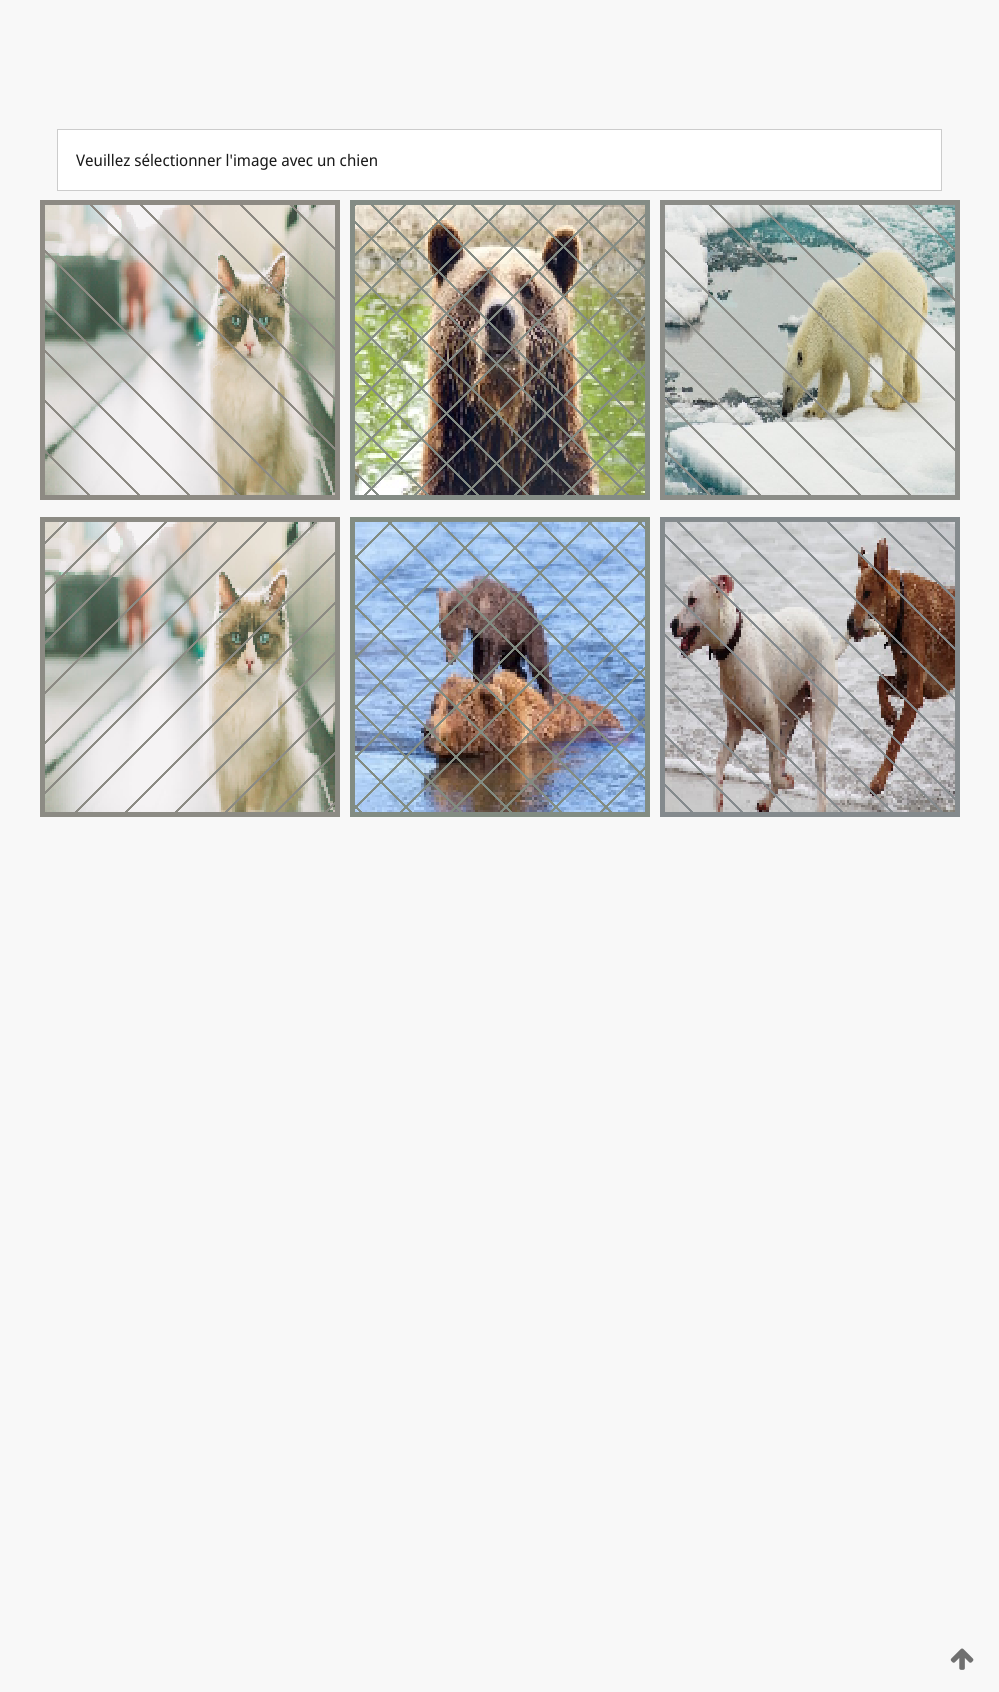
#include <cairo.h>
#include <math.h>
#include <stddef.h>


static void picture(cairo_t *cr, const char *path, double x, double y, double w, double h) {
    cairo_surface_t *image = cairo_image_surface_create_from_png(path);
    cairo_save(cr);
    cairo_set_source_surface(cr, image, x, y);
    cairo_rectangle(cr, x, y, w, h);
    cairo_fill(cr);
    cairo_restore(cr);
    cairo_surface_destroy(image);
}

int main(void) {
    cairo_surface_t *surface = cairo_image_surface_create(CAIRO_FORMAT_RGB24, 999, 1692);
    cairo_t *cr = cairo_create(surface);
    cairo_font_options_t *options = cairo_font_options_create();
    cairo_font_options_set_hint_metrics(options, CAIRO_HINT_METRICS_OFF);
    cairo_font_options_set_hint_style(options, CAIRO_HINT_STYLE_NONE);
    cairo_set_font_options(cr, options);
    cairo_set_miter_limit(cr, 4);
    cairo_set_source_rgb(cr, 0.969, 0.969, 0.969);
    cairo_paint(cr);
    cairo_set_source_rgb(cr, 1, 1, 1);
    cairo_rectangle(cr, 57.5, 129.5, 884, 61);
    cairo_fill_preserve(cr);
    cairo_set_source_rgb(cr, 0.8, 0.8, 0.8);
    cairo_set_line_width(cr, 1);
    cairo_stroke(cr);
    cairo_select_font_face(cr, "Noto Sans Display", CAIRO_FONT_SLANT_NORMAL, CAIRO_FONT_WEIGHT_NORMAL);
    cairo_set_font_size(cr, 16);
    cairo_set_source_rgb(cr, 0.102, 0.102, 0.102);
    cairo_move_to(cr, 76, 166);
    cairo_show_text(cr, "Veuillez sélectionner l'image avec un chien");
    picture(cr, "img1.png", 40, 200, 300, 300);
    picture(cr, "img2.png", 350, 200, 300, 300);
    picture(cr, "img3.png", 660, 200, 300, 300);
    picture(cr, "img4.png", 40, 517, 300, 300);
    picture(cr, "img5.png", 350, 517, 300, 300);
    picture(cr, "img6.png", 660, 517, 300, 300);
    picture(cr, "img7.png", 950, 1648, 24, 22);
    cairo_surface_write_to_png(surface, "page.png");
    cairo_font_options_destroy(options);
    cairo_destroy(cr);
    cairo_surface_destroy(surface);
    return 0;
}
